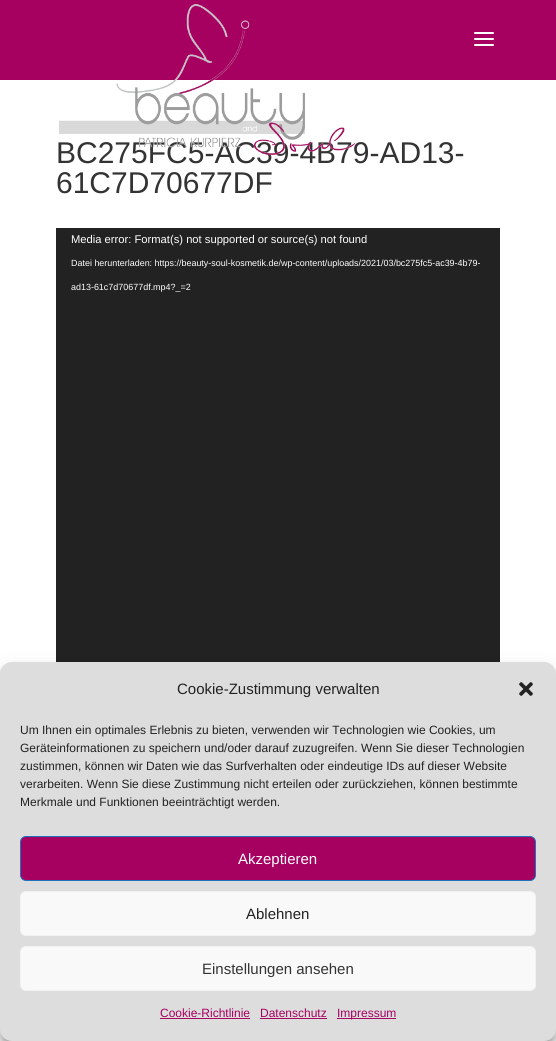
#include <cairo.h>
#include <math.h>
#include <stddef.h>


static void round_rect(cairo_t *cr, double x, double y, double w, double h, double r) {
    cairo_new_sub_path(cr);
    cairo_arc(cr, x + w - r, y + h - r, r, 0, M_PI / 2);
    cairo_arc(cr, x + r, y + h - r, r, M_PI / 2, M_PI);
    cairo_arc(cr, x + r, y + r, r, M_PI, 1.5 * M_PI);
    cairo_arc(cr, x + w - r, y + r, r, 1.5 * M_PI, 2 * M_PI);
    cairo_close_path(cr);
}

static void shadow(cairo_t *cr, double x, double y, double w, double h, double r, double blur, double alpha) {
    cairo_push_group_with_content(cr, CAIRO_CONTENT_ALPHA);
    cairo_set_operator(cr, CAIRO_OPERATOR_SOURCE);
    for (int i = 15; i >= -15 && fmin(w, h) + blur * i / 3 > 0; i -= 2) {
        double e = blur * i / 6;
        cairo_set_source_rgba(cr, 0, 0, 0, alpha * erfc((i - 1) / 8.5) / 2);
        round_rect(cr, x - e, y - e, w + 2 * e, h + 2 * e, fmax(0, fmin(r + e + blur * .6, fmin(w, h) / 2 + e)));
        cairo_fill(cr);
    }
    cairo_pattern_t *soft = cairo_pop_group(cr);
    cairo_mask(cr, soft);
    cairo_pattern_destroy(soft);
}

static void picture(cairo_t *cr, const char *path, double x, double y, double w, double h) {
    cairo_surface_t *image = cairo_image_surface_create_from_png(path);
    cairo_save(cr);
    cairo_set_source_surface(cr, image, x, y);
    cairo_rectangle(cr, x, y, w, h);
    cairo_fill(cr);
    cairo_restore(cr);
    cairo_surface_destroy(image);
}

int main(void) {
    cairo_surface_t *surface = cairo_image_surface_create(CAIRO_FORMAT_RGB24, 556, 1041);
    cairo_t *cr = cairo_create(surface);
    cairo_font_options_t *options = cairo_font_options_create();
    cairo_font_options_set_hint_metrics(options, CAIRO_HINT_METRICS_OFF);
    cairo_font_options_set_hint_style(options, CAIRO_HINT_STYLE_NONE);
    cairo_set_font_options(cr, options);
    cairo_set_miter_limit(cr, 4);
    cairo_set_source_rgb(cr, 1, 1, 1);
    cairo_paint(cr);
    cairo_set_source_rgb(cr, 0.651, 0, 0.38);
    cairo_rectangle(cr, 0, 0, 556, 80);
    cairo_fill(cr);
    cairo_select_font_face(cr, "Liberation Sans", CAIRO_FONT_SLANT_NORMAL, CAIRO_FONT_WEIGHT_NORMAL);
    cairo_set_font_size(cr, 30);
    cairo_set_source_rgb(cr, 0.2, 0.2, 0.2);
    cairo_move_to(cr, 56, 163);
    cairo_show_text(cr, "BC275FC5-AC39-4B79-AD13-");
    picture(cr, "img1.png", 59, 4, 297, 151);
    picture(cr, "img2.png", 474, 32, 20, 14);
    cairo_move_to(cr, 56, 193);
    cairo_show_text(cr, "61C7D70677DF");
    cairo_set_source_rgb(cr, 0.133, 0.133, 0.133);
    cairo_rectangle(cr, 56, 228, 444, 434);
    cairo_fill(cr);
    cairo_set_font_size(cr, 11.2);
    cairo_set_source_rgb(cr, 1, 1, 1);
    cairo_move_to(cr, 71, 243);
    cairo_show_text(cr, "Media error: Format(s) not supported or source(s) not found");
    cairo_set_font_size(cr, 8.95);
    cairo_move_to(cr, 71, 266);
    cairo_show_text(cr, "Datei herunterladen: https://beauty-soul-kosmetik.de/wp-content/uploads/2021/03/bc275fc5-ac39-4b79-");
    cairo_move_to(cr, 71, 290);
    cairo_show_text(cr, "ad13-61c7d70677df.mp4?_=2");
    cairo_set_source_rgb(cr, 0, 0, 0);
    shadow(cr, 0, 668, 556, 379, 12, 3, 0.23);
    shadow(cr, 0, 672, 556, 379, 12, 10, 0.19);
    cairo_set_source_rgb(cr, 0.867, 0.867, 0.867);
    round_rect(cr, 0, 662, 556, 379, 12);
    cairo_fill(cr);
    cairo_set_font_size(cr, 15);
    cairo_set_source_rgb(cr, 0.133, 0.133, 0.133);
    cairo_move_to(cr, 177, 694);
    cairo_show_text(cr, "Cookie-Zustimmung verwalten");
    picture(cr, "img3.png", 519, 682, 14, 14);
    cairo_set_font_size(cr, 12);
    cairo_move_to(cr, 20, 734);
    cairo_show_text(cr, "Um Ihnen ein optimales Erlebnis zu bieten, verwenden wir Technologien wie Cookies, um");
    cairo_move_to(cr, 20, 752);
    cairo_show_text(cr, "Geräteinformationen zu speichern und/oder darauf zuzugreifen. Wenn Sie dieser Technologien");
    cairo_move_to(cr, 20, 770);
    cairo_show_text(cr, "zustimmen, können wir Daten wie das Surfverhalten oder eindeutige IDs auf dieser Website");
    cairo_move_to(cr, 20, 788);
    cairo_show_text(cr, "verarbeiten. Wenn Sie diese Zustimmung nicht erteilen oder zurückziehen, können bestimmte");
    cairo_move_to(cr, 20, 806);
    cairo_show_text(cr, "Merkmale und Funktionen beeinträchtigt werden.");
    cairo_set_source_rgb(cr, 0.651, 0, 0.38);
    round_rect(cr, 20.5, 836.5, 515, 44, 5.5);
    cairo_fill_preserve(cr);
    cairo_set_source_rgb(cr, 0.118, 0.451, 0.745);
    cairo_set_line_width(cr, 1);
    cairo_stroke(cr);
    cairo_set_font_size(cr, 15);
    cairo_set_source_rgb(cr, 1, 1, 1);
    cairo_move_to(cr, 238, 864);
    cairo_show_text(cr, "Akzeptieren");
    cairo_set_source_rgb(cr, 0.976, 0.976, 0.976);
    round_rect(cr, 20.5, 891.5, 515, 44, 5.5);
    cairo_fill_preserve(cr);
    cairo_set_source_rgb(cr, 0.949, 0.949, 0.949);
    cairo_stroke(cr);
    cairo_set_source_rgb(cr, 0.133, 0.133, 0.133);
    cairo_move_to(cr, 246, 919);
    cairo_show_text(cr, "Ablehnen");
    cairo_set_source_rgb(cr, 0.976, 0.976, 0.976);
    round_rect(cr, 20.5, 946.5, 515, 44, 5.5);
    cairo_fill_preserve(cr);
    cairo_set_source_rgb(cr, 0.949, 0.949, 0.949);
    cairo_stroke(cr);
    cairo_set_source_rgb(cr, 0.2, 0.2, 0.2);
    cairo_move_to(cr, 202, 974);
    cairo_show_text(cr, "Einstellungen ansehen");
    cairo_set_font_size(cr, 12);
    cairo_set_source_rgb(cr, 0.651, 0, 0.38);
    cairo_move_to(cr, 160, 1017);
    cairo_show_text(cr, "Cookie-Richtlinie");
    cairo_rectangle(cr, 160, 1018, 90, 1);
    cairo_fill(cr);
    cairo_move_to(cr, 260, 1017);
    cairo_show_text(cr, "Datenschutz");
    cairo_rectangle(cr, 260, 1018, 67, 1);
    cairo_fill(cr);
    cairo_rectangle(cr, 337, 1018, 59, 1);
    cairo_fill(cr);
    cairo_move_to(cr, 337, 1017);
    cairo_show_text(cr, "Impressum");
    cairo_surface_write_to_png(surface, "page.png");
    cairo_font_options_destroy(options);
    cairo_destroy(cr);
    cairo_surface_destroy(surface);
    return 0;
}
